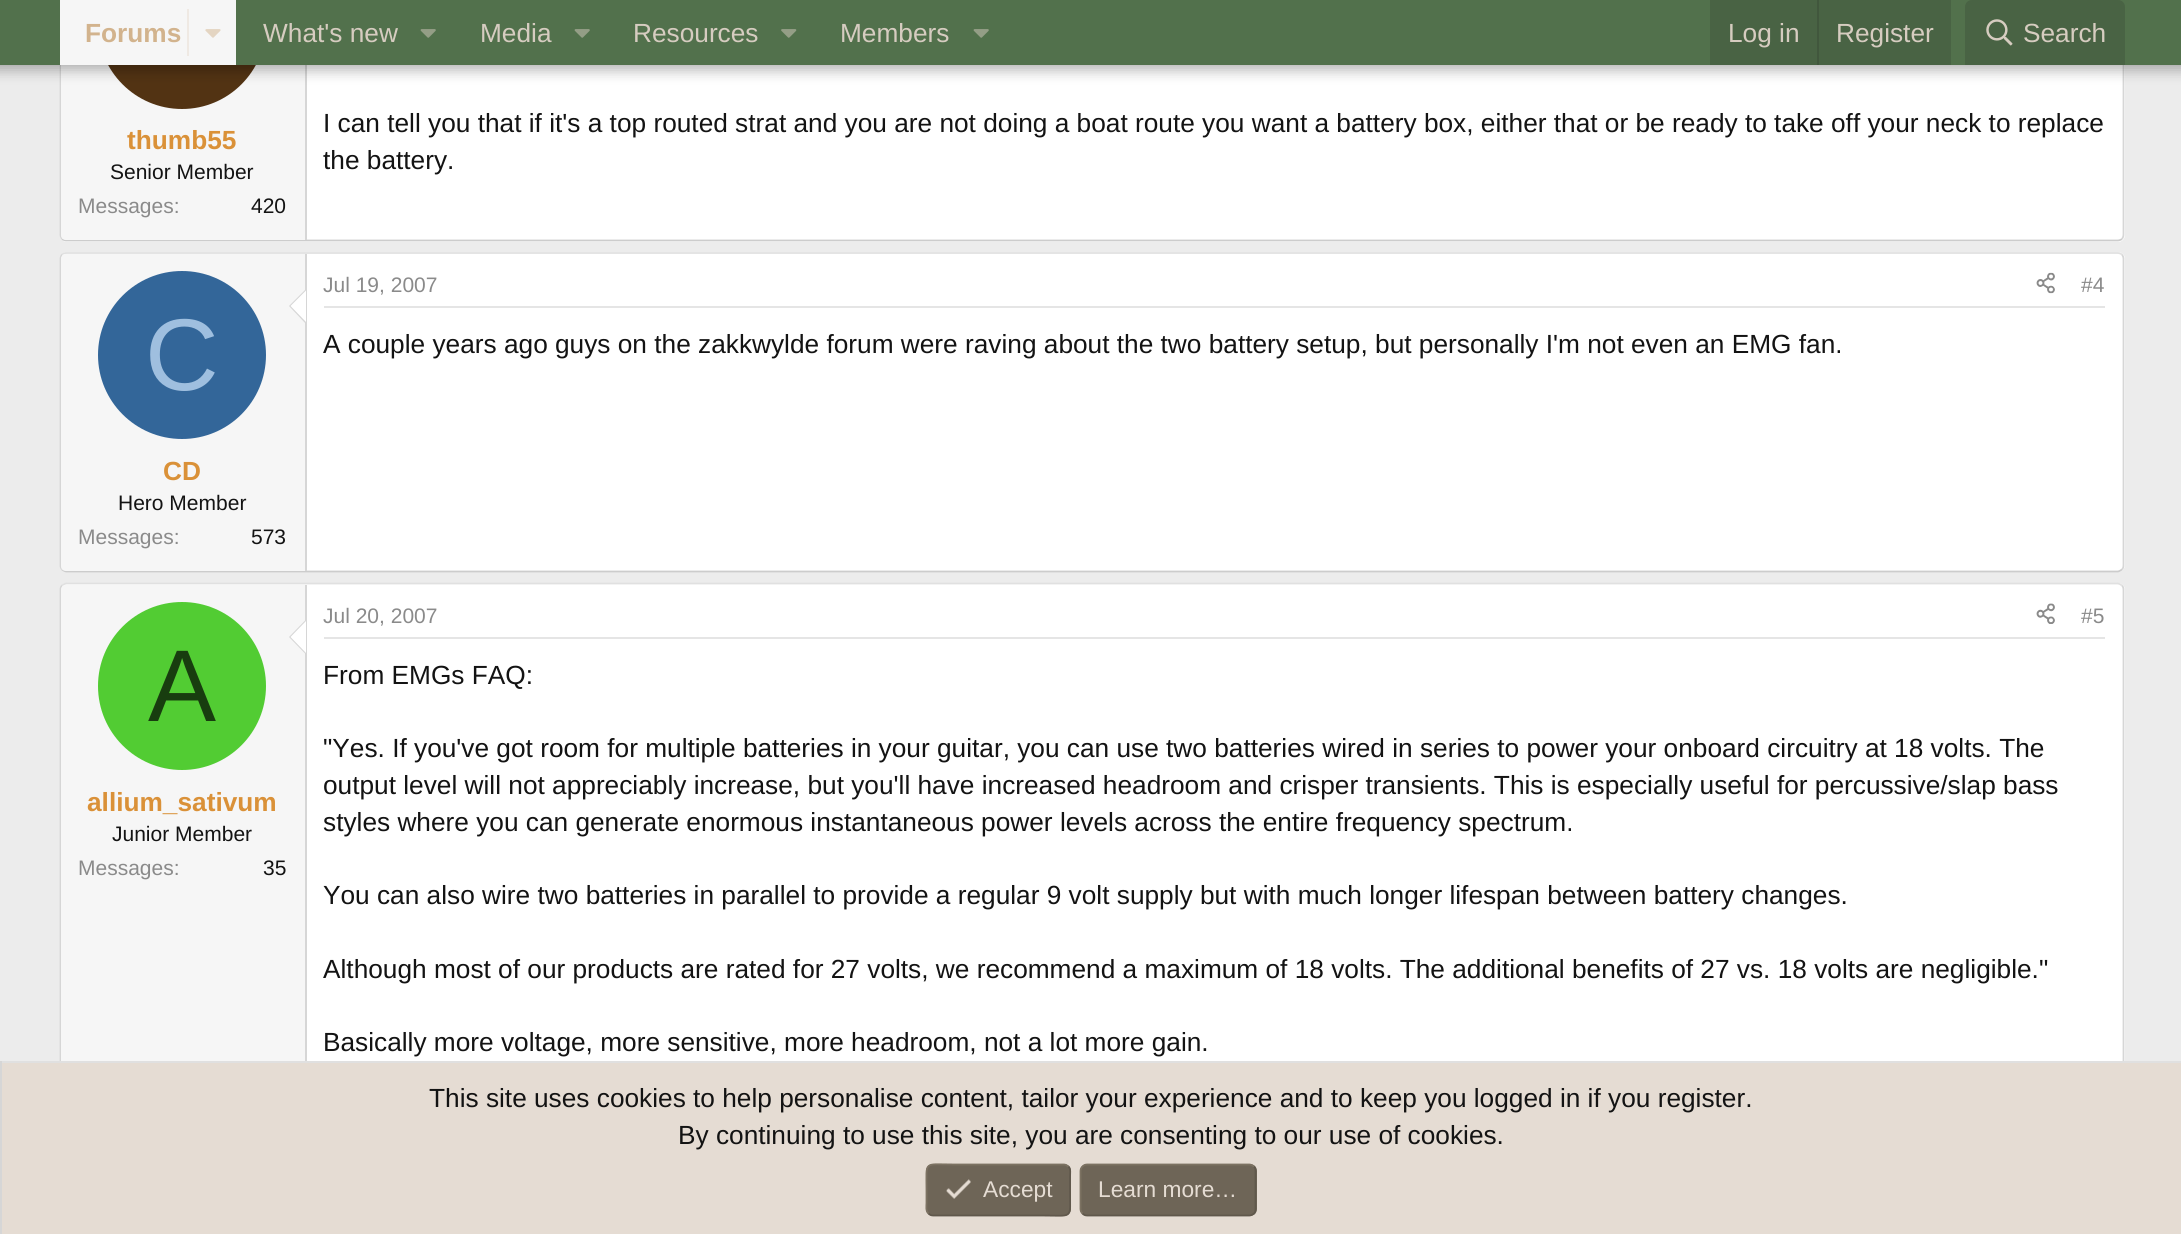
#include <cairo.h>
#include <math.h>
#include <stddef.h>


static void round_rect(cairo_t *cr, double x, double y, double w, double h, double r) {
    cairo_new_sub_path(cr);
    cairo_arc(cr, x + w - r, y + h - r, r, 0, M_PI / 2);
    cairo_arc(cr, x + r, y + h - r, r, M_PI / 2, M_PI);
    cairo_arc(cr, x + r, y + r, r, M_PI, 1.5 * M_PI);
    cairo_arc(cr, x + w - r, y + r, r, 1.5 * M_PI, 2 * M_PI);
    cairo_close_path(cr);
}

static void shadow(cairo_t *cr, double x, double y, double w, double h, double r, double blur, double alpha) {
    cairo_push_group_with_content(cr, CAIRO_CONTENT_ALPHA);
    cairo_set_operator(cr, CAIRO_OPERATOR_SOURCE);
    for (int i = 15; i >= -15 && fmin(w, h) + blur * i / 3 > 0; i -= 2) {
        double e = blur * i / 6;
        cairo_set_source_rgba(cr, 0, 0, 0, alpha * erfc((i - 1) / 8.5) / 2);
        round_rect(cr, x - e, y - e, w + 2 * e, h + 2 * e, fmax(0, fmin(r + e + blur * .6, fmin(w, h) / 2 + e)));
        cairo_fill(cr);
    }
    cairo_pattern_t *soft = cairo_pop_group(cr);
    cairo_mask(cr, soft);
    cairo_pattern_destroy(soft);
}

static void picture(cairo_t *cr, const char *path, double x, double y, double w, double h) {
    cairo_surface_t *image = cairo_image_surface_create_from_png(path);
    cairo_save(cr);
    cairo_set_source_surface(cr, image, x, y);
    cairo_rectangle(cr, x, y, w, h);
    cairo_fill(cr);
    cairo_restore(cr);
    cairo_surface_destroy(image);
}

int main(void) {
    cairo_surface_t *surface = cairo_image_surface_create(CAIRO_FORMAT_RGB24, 2181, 1234);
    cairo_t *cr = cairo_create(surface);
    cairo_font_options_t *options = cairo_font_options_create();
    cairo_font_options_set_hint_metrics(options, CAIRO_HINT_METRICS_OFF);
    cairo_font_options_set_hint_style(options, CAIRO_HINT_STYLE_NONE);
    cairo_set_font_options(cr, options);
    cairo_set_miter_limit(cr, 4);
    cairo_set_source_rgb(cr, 0.922, 0.922, 0.922);
    cairo_paint(cr);
    cairo_set_source_rgb(cr, 1, 1, 1);
    round_rect(cr, 60, -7, 2065, 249, 7);
    cairo_fill(cr);
    cairo_new_path(cr);
    cairo_move_to(cr, 2122, -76);
    cairo_curve_to(cr, 2123, -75, 2123.5, -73.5, 2123.5, -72);
    cairo_line_to(cr, 2123.5, 234.5);
    cairo_curve_to(cr, 2123.5, 236, 2123, 237.5, 2122, 239);
    cairo_set_source_rgb(cr, 0.839, 0.839, 0.839);
    cairo_set_line_width(cr, 1.8);
    cairo_stroke(cr);
    cairo_new_path(cr);
    cairo_move_to(cr, 2122, 239);
    cairo_curve_to(cr, 2120.5, 240, 2119, 240.5, 2117.5, 240.5);
    cairo_line_to(cr, 66.5, 240.5);
    cairo_curve_to(cr, 65, 240.5, 63.5, 240, 62, 239);
    cairo_set_source_rgb(cr, 0.8, 0.8, 0.8);
    cairo_stroke(cr);
    cairo_new_path(cr);
    cairo_move_to(cr, 62, 239);
    cairo_curve_to(cr, 61, 237.5, 60.5, 236, 60.5, 234.5);
    cairo_line_to(cr, 60.5, -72);
    cairo_curve_to(cr, 60.5, -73.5, 61, -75, 62, -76);
    cairo_set_source_rgb(cr, 0.839, 0.839, 0.839);
    cairo_stroke(cr);
    cairo_set_source_rgb(cr, 0.961, 0.961, 0.961);
    cairo_new_path(cr);
    cairo_move_to(cr, 66, -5);
    cairo_line_to(cr, 306, -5);
    cairo_line_to(cr, 306, 240);
    cairo_line_to(cr, 66, 240);
    cairo_curve_to(cr, 63, 240, 61, 238, 61, 235);
    cairo_line_to(cr, 61, 0);
    cairo_curve_to(cr, 61, -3, 63, -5, 66, -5);
    cairo_close_path(cr);
    cairo_fill(cr);
    cairo_set_source_rgb(cr, 0.839, 0.839, 0.839);
    cairo_rectangle(cr, 305, 65, 2, 175);
    cairo_fill(cr);
    cairo_set_source_rgb(cr, 0.322, 0.2, 0.078);
    cairo_arc(cr, 182, 25, 84, 0, 2 * M_PI);
    cairo_fill(cr);
    cairo_set_source_rgb(cr, 0, 0, 0);
    shadow(cr, -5, -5, 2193, 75, 0, 7, 0.3);
    cairo_set_source_rgb(cr, 0.322, 0.443, 0.298);
    cairo_rectangle(cr, 0, 0, 2181, 65);
    cairo_fill(cr);
    cairo_set_source_rgb(cr, 0.961, 0.961, 0.961);
    cairo_rectangle(cr, 60, 0, 176, 65);
    cairo_fill(cr);
    cairo_select_font_face(cr, "Liberation Sans", CAIRO_FONT_SLANT_NORMAL, CAIRO_FONT_WEIGHT_BOLD);
    cairo_set_font_size(cr, 26.25);
    cairo_set_source_rgb(cr, 0.824, 0.702, 0.553);
    cairo_move_to(cr, 85, 42);
    cairo_show_text(cr, "Forums");
    cairo_set_source_rgb(cr, 0.937, 0.914, 0.89);
    cairo_rectangle(cr, 187, 9, 2, 47);
    cairo_fill(cr);
    picture(cr, "img1.png", 205, 29, 16, 9);
    cairo_select_font_face(cr, "Liberation Sans", CAIRO_FONT_SLANT_NORMAL, CAIRO_FONT_WEIGHT_NORMAL);
    cairo_set_source_rgb(cr, 0.839, 0.8, 0.753);
    cairo_move_to(cr, 263, 42);
    cairo_show_text(cr, "What's new");
    picture(cr, "img2.png", 420, 29, 16, 9);
    cairo_move_to(cr, 480, 42);
    cairo_show_text(cr, "Media");
    picture(cr, "img2.png", 574, 29, 16, 9);
    cairo_move_to(cr, 633, 42);
    cairo_show_text(cr, "Resources");
    picture(cr, "img3.png", 781, 29, 16, 9);
    cairo_move_to(cr, 840, 42);
    cairo_show_text(cr, "Members");
    picture(cr, "img2.png", 973, 29, 16, 9);
    cairo_set_source_rgb(cr, 0.286, 0.388, 0.267);
    cairo_rectangle(cr, 1710, 0, 241, 65);
    cairo_fill(cr);
    cairo_set_source_rgb(cr, 0.839, 0.8, 0.753);
    cairo_move_to(cr, 1728, 42);
    cairo_show_text(cr, "Log in");
    cairo_set_source_rgb(cr, 0.255, 0.341, 0.239);
    cairo_rectangle(cr, 1817, 0, 2, 65);
    cairo_fill(cr);
    cairo_set_source_rgb(cr, 0.839, 0.8, 0.753);
    cairo_move_to(cr, 1836, 42);
    cairo_show_text(cr, "Register");
    cairo_set_source_rgb(cr, 0.286, 0.388, 0.267);
    cairo_new_path(cr);
    cairo_move_to(cr, 1972, 0);
    cairo_line_to(cr, 2118, 0);
    cairo_curve_to(cr, 2122, 0, 2125, 3, 2125, 7);
    cairo_line_to(cr, 2125, 65);
    cairo_line_to(cr, 1965, 65);
    cairo_line_to(cr, 1965, 7);
    cairo_curve_to(cr, 1965, 3, 1968, 0, 1972, 0);
    cairo_close_path(cr);
    cairo_fill(cr);
    picture(cr, "img4.png", 1986, 19, 27, 27);
    cairo_set_source_rgb(cr, 0.839, 0.8, 0.753);
    cairo_move_to(cr, 2023, 42);
    cairo_show_text(cr, "Search");
    cairo_select_font_face(cr, "Liberation Sans", CAIRO_FONT_SLANT_NORMAL, CAIRO_FONT_WEIGHT_BOLD);
    cairo_set_source_rgb(cr, 0.855, 0.569, 0.22);
    cairo_move_to(cr, 127, 149);
    cairo_show_text(cr, "thumb55");
    cairo_select_font_face(cr, "Liberation Sans", CAIRO_FONT_SLANT_NORMAL, CAIRO_FONT_WEIGHT_NORMAL);
    cairo_set_font_size(cr, 21);
    cairo_set_source_rgb(cr, 0.078, 0.078, 0.078);
    cairo_move_to(cr, 110, 179);
    cairo_show_text(cr, "Senior Member");
    cairo_set_source_rgb(cr, 0.541, 0.541, 0.541);
    cairo_move_to(cr, 78, 213);
    cairo_show_text(cr, "Messages:");
    cairo_set_source_rgb(cr, 0.078, 0.078, 0.078);
    cairo_move_to(cr, 251, 213);
    cairo_show_text(cr, "420");
    cairo_set_font_size(cr, 26.25);
    cairo_move_to(cr, 323, 132);
    cairo_show_text(cr, "I can tell you that if it's a top routed strat and you are not doing a boat route you want a battery box, either that or be ready to take off your neck to replace");
    cairo_move_to(cr, 323, 169);
    cairo_show_text(cr, "the battery.");
    cairo_set_source_rgb(cr, 1, 1, 1);
    round_rect(cr, 60, 252, 2065, 320, 7);
    cairo_fill(cr);
    cairo_new_path(cr);
    cairo_move_to(cr, 62, 254.5);
    cairo_curve_to(cr, 63.5, 253.5, 65, 253, 66.5, 253);
    cairo_line_to(cr, 2117.5, 253);
    cairo_curve_to(cr, 2119, 253, 2120.5, 253.5, 2122, 254.5);
    cairo_set_source_rgb(cr, 0.878, 0.878, 0.878);
    cairo_stroke(cr);
    cairo_new_path(cr);
    cairo_move_to(cr, 2122, 254.5);
    cairo_curve_to(cr, 2123, 256, 2123.5, 257.5, 2123.5, 259);
    cairo_line_to(cr, 2123.5, 565);
    cairo_curve_to(cr, 2123.5, 567, 2123, 568.5, 2122, 569.5);
    cairo_set_source_rgb(cr, 0.839, 0.839, 0.839);
    cairo_stroke(cr);
    cairo_new_path(cr);
    cairo_move_to(cr, 2122, 569.5);
    cairo_curve_to(cr, 2120.5, 570.5, 2119, 571.5, 2117.5, 571.5);
    cairo_line_to(cr, 66.5, 571.5);
    cairo_curve_to(cr, 65, 571.5, 63.5, 570.5, 62, 569.5);
    cairo_set_source_rgb(cr, 0.8, 0.8, 0.8);
    cairo_stroke(cr);
    cairo_new_path(cr);
    cairo_move_to(cr, 62, 569.5);
    cairo_curve_to(cr, 61, 568.5, 60.5, 567, 60.5, 565);
    cairo_line_to(cr, 60.5, 259);
    cairo_curve_to(cr, 60.5, 257.5, 61, 256, 62, 254.5);
    cairo_set_source_rgb(cr, 0.839, 0.839, 0.839);
    cairo_stroke(cr);
    cairo_set_source_rgb(cr, 0.961, 0.961, 0.961);
    cairo_new_path(cr);
    cairo_move_to(cr, 66, 254);
    cairo_line_to(cr, 306, 254);
    cairo_line_to(cr, 306, 571);
    cairo_line_to(cr, 66, 571);
    cairo_curve_to(cr, 63, 571, 61, 569, 61, 566);
    cairo_line_to(cr, 61, 259);
    cairo_curve_to(cr, 61, 256, 63, 254, 66, 254);
    cairo_close_path(cr);
    cairo_fill(cr);
    cairo_set_source_rgb(cr, 0.839, 0.839, 0.839);
    cairo_rectangle(cr, 305, 254, 2, 317);
    cairo_fill(cr);
    cairo_new_path(cr);
    cairo_move_to(cr, 306, 289);
    cairo_line_to(cr, 306, 324);
    cairo_line_to(cr, 289, 306);
    cairo_close_path(cr);
    cairo_fill(cr);
    cairo_set_source_rgb(cr, 1, 1, 1);
    cairo_new_path(cr);
    cairo_move_to(cr, 306, 290.5);
    cairo_line_to(cr, 306, 322);
    cairo_line_to(cr, 290.5, 306);
    cairo_close_path(cr);
    cairo_fill(cr);
    cairo_set_source_rgb(cr, 0.2, 0.4, 0.6);
    cairo_arc(cr, 182, 355, 84, 0, 2 * M_PI);
    cairo_fill(cr);
    cairo_set_font_size(cr, 102);
    cairo_set_source_rgb(cr, 0.624, 0.749, 0.875);
    cairo_move_to(cr, 145, 390);
    cairo_show_text(cr, "C");
    cairo_select_font_face(cr, "Liberation Sans", CAIRO_FONT_SLANT_NORMAL, CAIRO_FONT_WEIGHT_BOLD);
    cairo_set_font_size(cr, 26.25);
    cairo_set_source_rgb(cr, 0.855, 0.569, 0.22);
    cairo_move_to(cr, 163, 480);
    cairo_show_text(cr, "CD");
    cairo_select_font_face(cr, "Liberation Sans", CAIRO_FONT_SLANT_NORMAL, CAIRO_FONT_WEIGHT_NORMAL);
    cairo_set_font_size(cr, 21);
    cairo_set_source_rgb(cr, 0.078, 0.078, 0.078);
    cairo_move_to(cr, 118, 510);
    cairo_show_text(cr, "Hero Member");
    cairo_set_source_rgb(cr, 0.541, 0.541, 0.541);
    cairo_move_to(cr, 78, 544);
    cairo_show_text(cr, "Messages:");
    cairo_set_source_rgb(cr, 0.078, 0.078, 0.078);
    cairo_move_to(cr, 251, 544);
    cairo_show_text(cr, "573");
    cairo_set_source_rgb(cr, 0.898, 0.898, 0.898);
    cairo_rectangle(cr, 324, 306, 1781, 2);
    cairo_fill(cr);
    cairo_set_source_rgb(cr, 0.541, 0.541, 0.541);
    cairo_move_to(cr, 323, 292);
    cairo_show_text(cr, "Jul 19, 2007");
    picture(cr, "img5.png", 2036, 272, 19, 22);
    cairo_move_to(cr, 2081, 292);
    cairo_show_text(cr, "#4");
    cairo_set_font_size(cr, 26.25);
    cairo_set_source_rgb(cr, 0.078, 0.078, 0.078);
    cairo_move_to(cr, 323, 353);
    cairo_show_text(cr, "A couple years ago guys on the zakkwylde forum were raving about the two battery setup, but personally I'm not even an EMG fan.");
    cairo_set_source_rgb(cr, 1, 1, 1);
    round_rect(cr, 60, 583, 2065, 497, 7);
    cairo_fill(cr);
    cairo_new_path(cr);
    cairo_move_to(cr, 62, 585.5);
    cairo_curve_to(cr, 63.5, 584.5, 65, 583.5, 66.5, 583.5);
    cairo_line_to(cr, 2117.5, 583.5);
    cairo_curve_to(cr, 2119, 583.5, 2120.5, 584.5, 2122, 585.5);
    cairo_set_source_rgb(cr, 0.878, 0.878, 0.878);
    cairo_stroke(cr);
    cairo_new_path(cr);
    cairo_move_to(cr, 2122, 585.5);
    cairo_curve_to(cr, 2123, 586.5, 2123.5, 588, 2123.5, 590);
    cairo_line_to(cr, 2123.5, 1073);
    cairo_curve_to(cr, 2123.5, 1074.5, 2123, 1076, 2122, 1077);
    cairo_set_source_rgb(cr, 0.839, 0.839, 0.839);
    cairo_stroke(cr);
    cairo_new_path(cr);
    cairo_move_to(cr, 62, 1077);
    cairo_curve_to(cr, 61, 1076, 60.5, 1074.5, 60.5, 1073);
    cairo_line_to(cr, 60.5, 590);
    cairo_curve_to(cr, 60.5, 588, 61, 586.5, 62, 585.5);
    cairo_stroke(cr);
    cairo_set_source_rgb(cr, 0.961, 0.961, 0.961);
    cairo_new_path(cr);
    cairo_move_to(cr, 66, 585);
    cairo_line_to(cr, 306, 585);
    cairo_line_to(cr, 306, 1078);
    cairo_line_to(cr, 66, 1078);
    cairo_curve_to(cr, 63, 1078, 61, 1076, 61, 1073);
    cairo_line_to(cr, 61, 590);
    cairo_curve_to(cr, 61, 587, 63, 585, 66, 585);
    cairo_close_path(cr);
    cairo_fill(cr);
    cairo_set_source_rgb(cr, 0.839, 0.839, 0.839);
    cairo_rectangle(cr, 305, 585, 2, 476);
    cairo_fill(cr);
    cairo_new_path(cr);
    cairo_move_to(cr, 306, 619.5);
    cairo_line_to(cr, 306, 654.5);
    cairo_line_to(cr, 289, 637);
    cairo_close_path(cr);
    cairo_fill(cr);
    cairo_set_source_rgb(cr, 1, 1, 1);
    cairo_new_path(cr);
    cairo_move_to(cr, 306, 621);
    cairo_line_to(cr, 306, 653);
    cairo_line_to(cr, 290.5, 637);
    cairo_close_path(cr);
    cairo_fill(cr);
    cairo_set_source_rgb(cr, 0.322, 0.8, 0.2);
    cairo_arc(cr, 182, 686, 84, 0, 2 * M_PI);
    cairo_fill(cr);
    cairo_set_font_size(cr, 102);
    cairo_set_source_rgb(cr, 0.094, 0.239, 0.059);
    cairo_move_to(cr, 148, 721);
    cairo_show_text(cr, "A");
    cairo_select_font_face(cr, "Liberation Sans", CAIRO_FONT_SLANT_NORMAL, CAIRO_FONT_WEIGHT_BOLD);
    cairo_set_font_size(cr, 26.25);
    cairo_set_source_rgb(cr, 0.855, 0.569, 0.22);
    cairo_move_to(cr, 87, 811);
    cairo_show_text(cr, "allium_sativum");
    cairo_select_font_face(cr, "Liberation Sans", CAIRO_FONT_SLANT_NORMAL, CAIRO_FONT_WEIGHT_NORMAL);
    cairo_set_font_size(cr, 21);
    cairo_set_source_rgb(cr, 0.078, 0.078, 0.078);
    cairo_move_to(cr, 112, 841);
    cairo_show_text(cr, "Junior Member");
    cairo_set_source_rgb(cr, 0.541, 0.541, 0.541);
    cairo_move_to(cr, 78, 875);
    cairo_show_text(cr, "Messages:");
    cairo_set_source_rgb(cr, 0.078, 0.078, 0.078);
    cairo_move_to(cr, 263, 875);
    cairo_show_text(cr, "35");
    cairo_set_source_rgb(cr, 0.898, 0.898, 0.898);
    cairo_rectangle(cr, 324, 637, 1781, 2);
    cairo_fill(cr);
    cairo_set_source_rgb(cr, 0.541, 0.541, 0.541);
    cairo_move_to(cr, 323, 623);
    cairo_show_text(cr, "Jul 20, 2007");
    picture(cr, "img6.png", 2036, 603, 19, 21);
    cairo_move_to(cr, 2081, 623);
    cairo_show_text(cr, "#5");
    cairo_set_font_size(cr, 26.25);
    cairo_set_source_rgb(cr, 0.078, 0.078, 0.078);
    cairo_move_to(cr, 323, 684);
    cairo_show_text(cr, "From EMGs FAQ:");
    cairo_move_to(cr, 323, 757);
    cairo_show_text(cr, "\"Yes. If you've got room for multiple batteries in your guitar, you can use two batteries wired in series to power your onboard circuitry at 18 volts. The");
    cairo_move_to(cr, 323, 794);
    cairo_show_text(cr, "output level will not appreciably increase, but you'll have increased headroom and crisper transients. This is especially useful for percussive/slap bass");
    cairo_move_to(cr, 323, 831);
    cairo_show_text(cr, "styles where you can generate enormous instantaneous power levels across the entire frequency spectrum.");
    cairo_move_to(cr, 323, 904);
    cairo_show_text(cr, "You can also wire two batteries in parallel to provide a regular 9 volt supply but with much longer lifespan between battery changes.");
    cairo_move_to(cr, 323, 978);
    cairo_show_text(cr, "Although most of our products are rated for 27 volts, we recommend a maximum of 18 volts. The additional benefits of 27 vs. 18 volts are negligible.\"");
    cairo_move_to(cr, 323, 1051);
    cairo_show_text(cr, "Basically more voltage, more sensitive, more headroom, not a lot more gain.");
    cairo_set_source_rgb(cr, 0.898, 0.863, 0.827);
    cairo_rectangle(cr, 2, 1063, 2179, 171);
    cairo_fill(cr);
    cairo_set_source_rgb(cr, 0.878, 0.878, 0.878);
    cairo_rectangle(cr, 0, 1061, 2181, 2);
    cairo_fill(cr);
    cairo_set_source_rgb(cr, 0.839, 0.839, 0.839);
    cairo_rectangle(cr, 0, 1061, 2, 173);
    cairo_fill(cr);
    cairo_set_source_rgb(cr, 0.078, 0.078, 0.078);
    cairo_move_to(cr, 429, 1107);
    cairo_show_text(cr, "This site uses cookies to help personalise content, tailor your experience and to keep you logged in if you register.");
    cairo_move_to(cr, 678, 1144);
    cairo_show_text(cr, "By continuing to use this site, you are consenting to our use of cookies.");
    cairo_set_source_rgb(cr, 0.431, 0.396, 0.341);
    round_rect(cr, 926, 1164, 145, 52, 7);
    cairo_fill(cr);
    cairo_new_path(cr);
    cairo_move_to(cr, 1068.5, 1166.5);
    cairo_curve_to(cr, 1071, 1169, 1070, 1174, 1070, 1177);
    cairo_line_to(cr, 1070, 1190);
    cairo_curve_to(cr, 1070, 1220, 1074, 1215.5, 1042, 1215.5);
    cairo_line_to(cr, 933, 1215.5);
    cairo_curve_to(cr, 931, 1215.5, 929.5, 1214.5, 928.5, 1213.5);
    cairo_set_source_rgb(cr, 0.376, 0.345, 0.298);
    cairo_stroke(cr);
    cairo_new_path(cr);
    cairo_move_to(cr, 928.5, 1213.5);
    cairo_curve_to(cr, 925.5, 1211, 926.5, 1206, 926.5, 1203);
    cairo_line_to(cr, 926.5, 1190);
    cairo_curve_to(cr, 926.5, 1160, 923, 1164.5, 954.5, 1164.5);
    cairo_line_to(cr, 1064, 1164.5);
    cairo_curve_to(cr, 1065.5, 1164.5, 1067, 1165.5, 1068.5, 1166.5);
    cairo_set_source_rgb(cr, 0.486, 0.447, 0.384);
    cairo_stroke(cr);
    picture(cr, "img7.png", 946, 1179, 25, 20);
    cairo_set_font_size(cr, 22.75);
    cairo_set_source_rgb(cr, 0.898, 0.863, 0.827);
    cairo_move_to(cr, 983, 1197);
    cairo_show_text(cr, "Accept");
    cairo_set_source_rgb(cr, 0.431, 0.396, 0.341);
    round_rect(cr, 1080, 1164, 177, 52, 7);
    cairo_fill(cr);
    cairo_new_path(cr);
    cairo_move_to(cr, 1254, 1166.5);
    cairo_curve_to(cr, 1255, 1167.5, 1255.5, 1169, 1255.5, 1171);
    cairo_line_to(cr, 1255.5, 1209);
    cairo_curve_to(cr, 1255.5, 1211, 1255, 1212.5, 1254, 1213.5);
    cairo_curve_to(cr, 1252.5, 1214.5, 1251, 1215.5, 1249.5, 1215.5);
    cairo_line_to(cr, 1087, 1215.5);
    cairo_curve_to(cr, 1085, 1215.5, 1083.5, 1214.5, 1082.5, 1213.5);
    cairo_set_source_rgb(cr, 0.376, 0.345, 0.298);
    cairo_stroke(cr);
    cairo_new_path(cr);
    cairo_move_to(cr, 1082.5, 1213.5);
    cairo_curve_to(cr, 1081.5, 1212.5, 1080.5, 1211, 1080.5, 1209);
    cairo_line_to(cr, 1080.5, 1171);
    cairo_curve_to(cr, 1080.5, 1169, 1081.5, 1167.5, 1082.5, 1166.5);
    cairo_curve_to(cr, 1083.5, 1165.5, 1085, 1164.5, 1087, 1164.5);
    cairo_line_to(cr, 1249.5, 1164.5);
    cairo_curve_to(cr, 1251, 1164.5, 1252.5, 1165.5, 1254, 1166.5);
    cairo_set_source_rgb(cr, 0.486, 0.447, 0.384);
    cairo_stroke(cr);
    cairo_set_source_rgb(cr, 0.898, 0.863, 0.827);
    cairo_move_to(cr, 1098, 1197);
    cairo_show_text(cr, "Learn more…");
    cairo_surface_write_to_png(surface, "page.png");
    cairo_font_options_destroy(options);
    cairo_destroy(cr);
    cairo_surface_destroy(surface);
    return 0;
}
